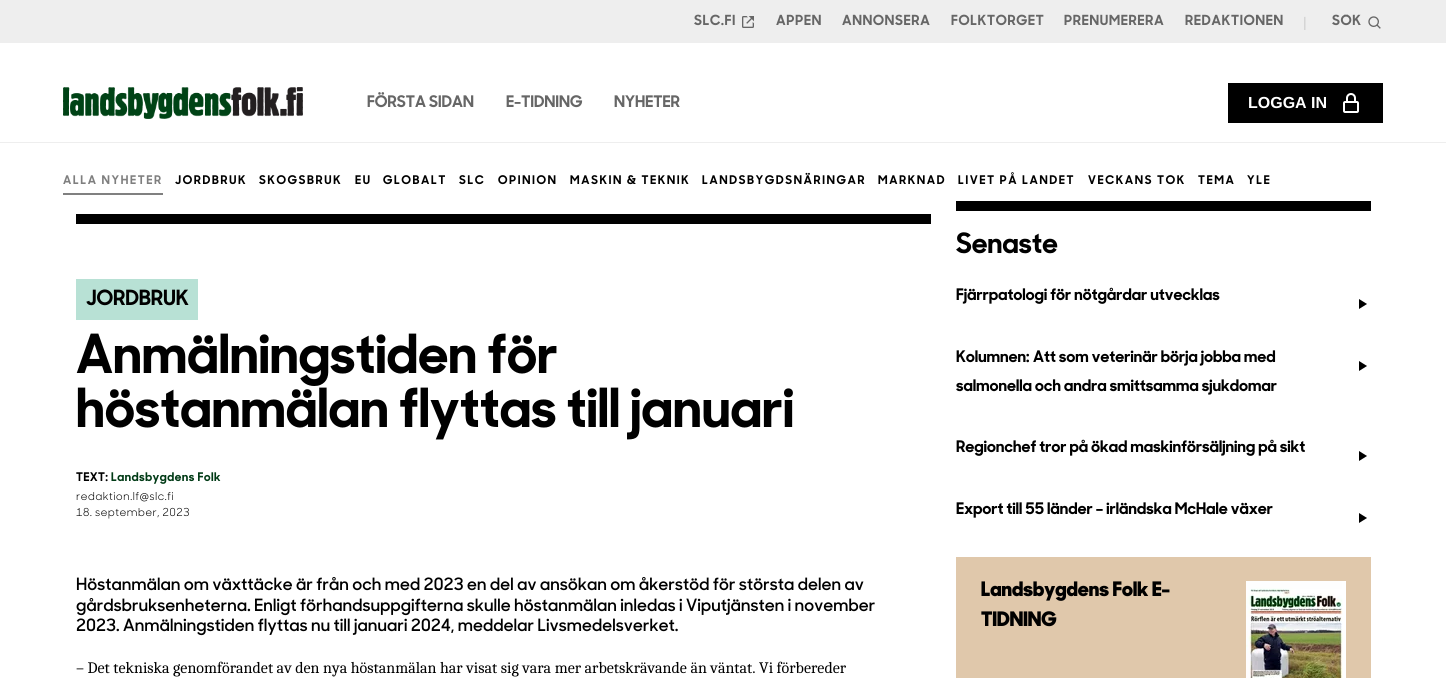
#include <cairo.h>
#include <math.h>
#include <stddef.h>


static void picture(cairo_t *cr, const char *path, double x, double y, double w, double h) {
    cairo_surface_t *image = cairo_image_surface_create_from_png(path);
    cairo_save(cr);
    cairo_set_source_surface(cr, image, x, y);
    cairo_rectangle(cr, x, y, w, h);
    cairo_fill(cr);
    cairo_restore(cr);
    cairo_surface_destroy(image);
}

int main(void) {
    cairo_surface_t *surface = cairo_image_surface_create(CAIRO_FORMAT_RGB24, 1446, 678);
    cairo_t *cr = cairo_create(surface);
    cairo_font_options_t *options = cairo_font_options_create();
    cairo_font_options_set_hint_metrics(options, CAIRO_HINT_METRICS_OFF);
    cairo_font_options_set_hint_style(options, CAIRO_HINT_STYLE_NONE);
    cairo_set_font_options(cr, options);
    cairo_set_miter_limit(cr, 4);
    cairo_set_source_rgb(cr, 1, 1, 1);
    cairo_paint(cr);
    cairo_set_source_rgb(cr, 0.933, 0.933, 0.933);
    cairo_rectangle(cr, 0, 0, 1446, 43);
    cairo_fill(cr);
    picture(cr, "img1.png", 694, 14, 41, 12);
    picture(cr, "img2.png", 742, 16, 12, 12);
    picture(cr, "img3.png", 776, 14, 45, 11);
    picture(cr, "img4.png", 842, 14, 88, 12);
    picture(cr, "img5.png", 951, 14, 93, 12);
    picture(cr, "img6.png", 1064, 14, 100, 12);
    picture(cr, "img7.png", 1185, 14, 98, 12);
    cairo_select_font_face(cr, "Liberation Sans", CAIRO_FONT_SLANT_NORMAL, CAIRO_FONT_WEIGHT_NORMAL);
    cairo_set_font_size(cr, 14);
    cairo_set_source_rgb(cr, 0.8, 0.8, 0.8);
    cairo_move_to(cr, 1303, 27);
    cairo_show_text(cr, "|");
    picture(cr, "img8.png", 1332, 14, 29, 12);
    picture(cr, "img9.png", 1368, 16, 13, 13);
    cairo_set_source_rgb(cr, 0.933, 0.933, 0.933);
    cairo_rectangle(cr, 0, 142, 1446, 1);
    cairo_fill(cr);
    picture(cr, "img10.png", 63, 87, 240, 32);
    picture(cr, "img11.png", 367, 92, 107, 16);
    picture(cr, "img12.png", 506, 95, 77, 13);
    picture(cr, "img13.png", 614, 95, 66, 12);
    cairo_set_source_rgb(cr, 0, 0, 0);
    cairo_rectangle(cr, 1228, 83, 155, 40);
    cairo_fill(cr);
    cairo_select_font_face(cr, "Liberation Sans", CAIRO_FONT_SLANT_NORMAL, CAIRO_FONT_WEIGHT_BOLD);
    cairo_set_font_size(cr, 16);
    cairo_set_source_rgb(cr, 1, 1, 1);
    cairo_move_to(cr, 1248, 108);
    cairo_show_text(cr, "LOGGA IN");
    picture(cr, "img14.png", 1343, 93, 16, 20);
    cairo_set_source_rgb(cr, 0.502, 0.502, 0.502);
    cairo_rectangle(cr, 63, 193, 100, 2);
    cairo_fill(cr);
    picture(cr, "img15.png", 63, 175, 98, 9);
    picture(cr, "img16.png", 175, 175, 71, 10);
    picture(cr, "img17.png", 259, 175, 82, 10);
    picture(cr, "img18.png", 355, 175, 15, 10);
    picture(cr, "img19.png", 383, 175, 62, 10);
    picture(cr, "img20.png", 459, 175, 25, 10);
    picture(cr, "img21.png", 498, 175, 58, 10);
    picture(cr, "img22.png", 570, 175, 119, 10);
    picture(cr, "img23.png", 702, 172, 163, 13);
    picture(cr, "img24.png", 878, 175, 67, 9);
    picture(cr, "img25.png", 958, 172, 116, 12);
    picture(cr, "img26.png", 1088, 175, 96, 10);
    picture(cr, "img27.png", 1198, 175, 36, 9);
    picture(cr, "img28.png", 1247, 175, 23, 9);
    cairo_set_source_rgb(cr, 0, 0, 0);
    cairo_rectangle(cr, 76, 214, 855, 10);
    cairo_fill(cr);
    cairo_set_source_rgb(cr, 0.722, 0.882, 0.835);
    cairo_rectangle(cr, 76, 279, 122, 41);
    cairo_fill(cr);
    picture(cr, "img29.png", 86, 289, 103, 17);
    picture(cr, "img30.png", 76, 333, 481, 53);
    picture(cr, "img31.png", 77, 387, 716, 53);
    picture(cr, "img32.png", 76, 472, 32, 10);
    picture(cr, "img33.png", 111, 472, 110, 12);
    picture(cr, "img34.png", 76, 492, 97, 10);
    picture(cr, "img35.png", 76, 507, 113, 12);
    picture(cr, "img36.png", 76, 577, 788, 14);
    picture(cr, "img37.png", 76, 598, 799, 18);
    picture(cr, "img38.png", 76, 618, 602, 18);
    cairo_select_font_face(cr, "Caladea", CAIRO_FONT_SLANT_NORMAL, CAIRO_FONT_WEIGHT_NORMAL);
    cairo_set_source_rgb(cr, 0, 0, 0);
    cairo_move_to(cr, 76, 673);
    cairo_show_text(cr, "– Det tekniska genomförandet av den nya höstanmälan har visat sig vara mer arbetskrävande än väntat. Vi förbereder");
    cairo_rectangle(cr, 956, 201, 415, 10);
    cairo_fill(cr);
    picture(cr, "img39.png", 956, 232, 102, 22);
    picture(cr, "img40.png", 956, 287, 264, 17);
    cairo_new_path(cr);
    cairo_move_to(cr, 1359, 299);
    cairo_line_to(cr, 1359, 309);
    cairo_line_to(cr, 1367, 304);
    cairo_close_path(cr);
    cairo_fill(cr);
    picture(cr, "img41.png", 956, 350, 73, 13);
    picture(cr, "img42.png", 1033, 350, 243, 16);
    cairo_new_path(cr);
    cairo_move_to(cr, 1359, 361);
    cairo_line_to(cr, 1359, 371);
    cairo_line_to(cr, 1367, 366);
    cairo_close_path(cr);
    cairo_fill(cr);
    picture(cr, "img43.png", 956, 379, 321, 16);
    picture(cr, "img44.png", 956, 439, 349, 17);
    cairo_new_path(cr);
    cairo_move_to(cr, 1359, 451);
    cairo_line_to(cr, 1359, 461);
    cairo_line_to(cr, 1367, 456);
    cairo_close_path(cr);
    cairo_fill(cr);
    picture(cr, "img45.png", 956, 502, 317, 16);
    cairo_new_path(cr);
    cairo_move_to(cr, 1359, 513);
    cairo_line_to(cr, 1359, 523);
    cairo_line_to(cr, 1367, 518);
    cairo_close_path(cr);
    cairo_fill(cr);
    cairo_set_source_rgb(cr, 0.878, 0.784, 0.671);
    cairo_rectangle(cr, 956, 557, 415, 121);
    cairo_fill(cr);
    picture(cr, "img46.png", 981, 581, 168, 20);
    picture(cr, "img47.png", 1152, 581, 18, 15);
    picture(cr, "img48.png", 981, 611, 76, 16);
    picture(cr, "img49.png", 1246, 581, 100, 97);
    cairo_surface_write_to_png(surface, "page.png");
    cairo_font_options_destroy(options);
    cairo_destroy(cr);
    cairo_surface_destroy(surface);
    return 0;
}
